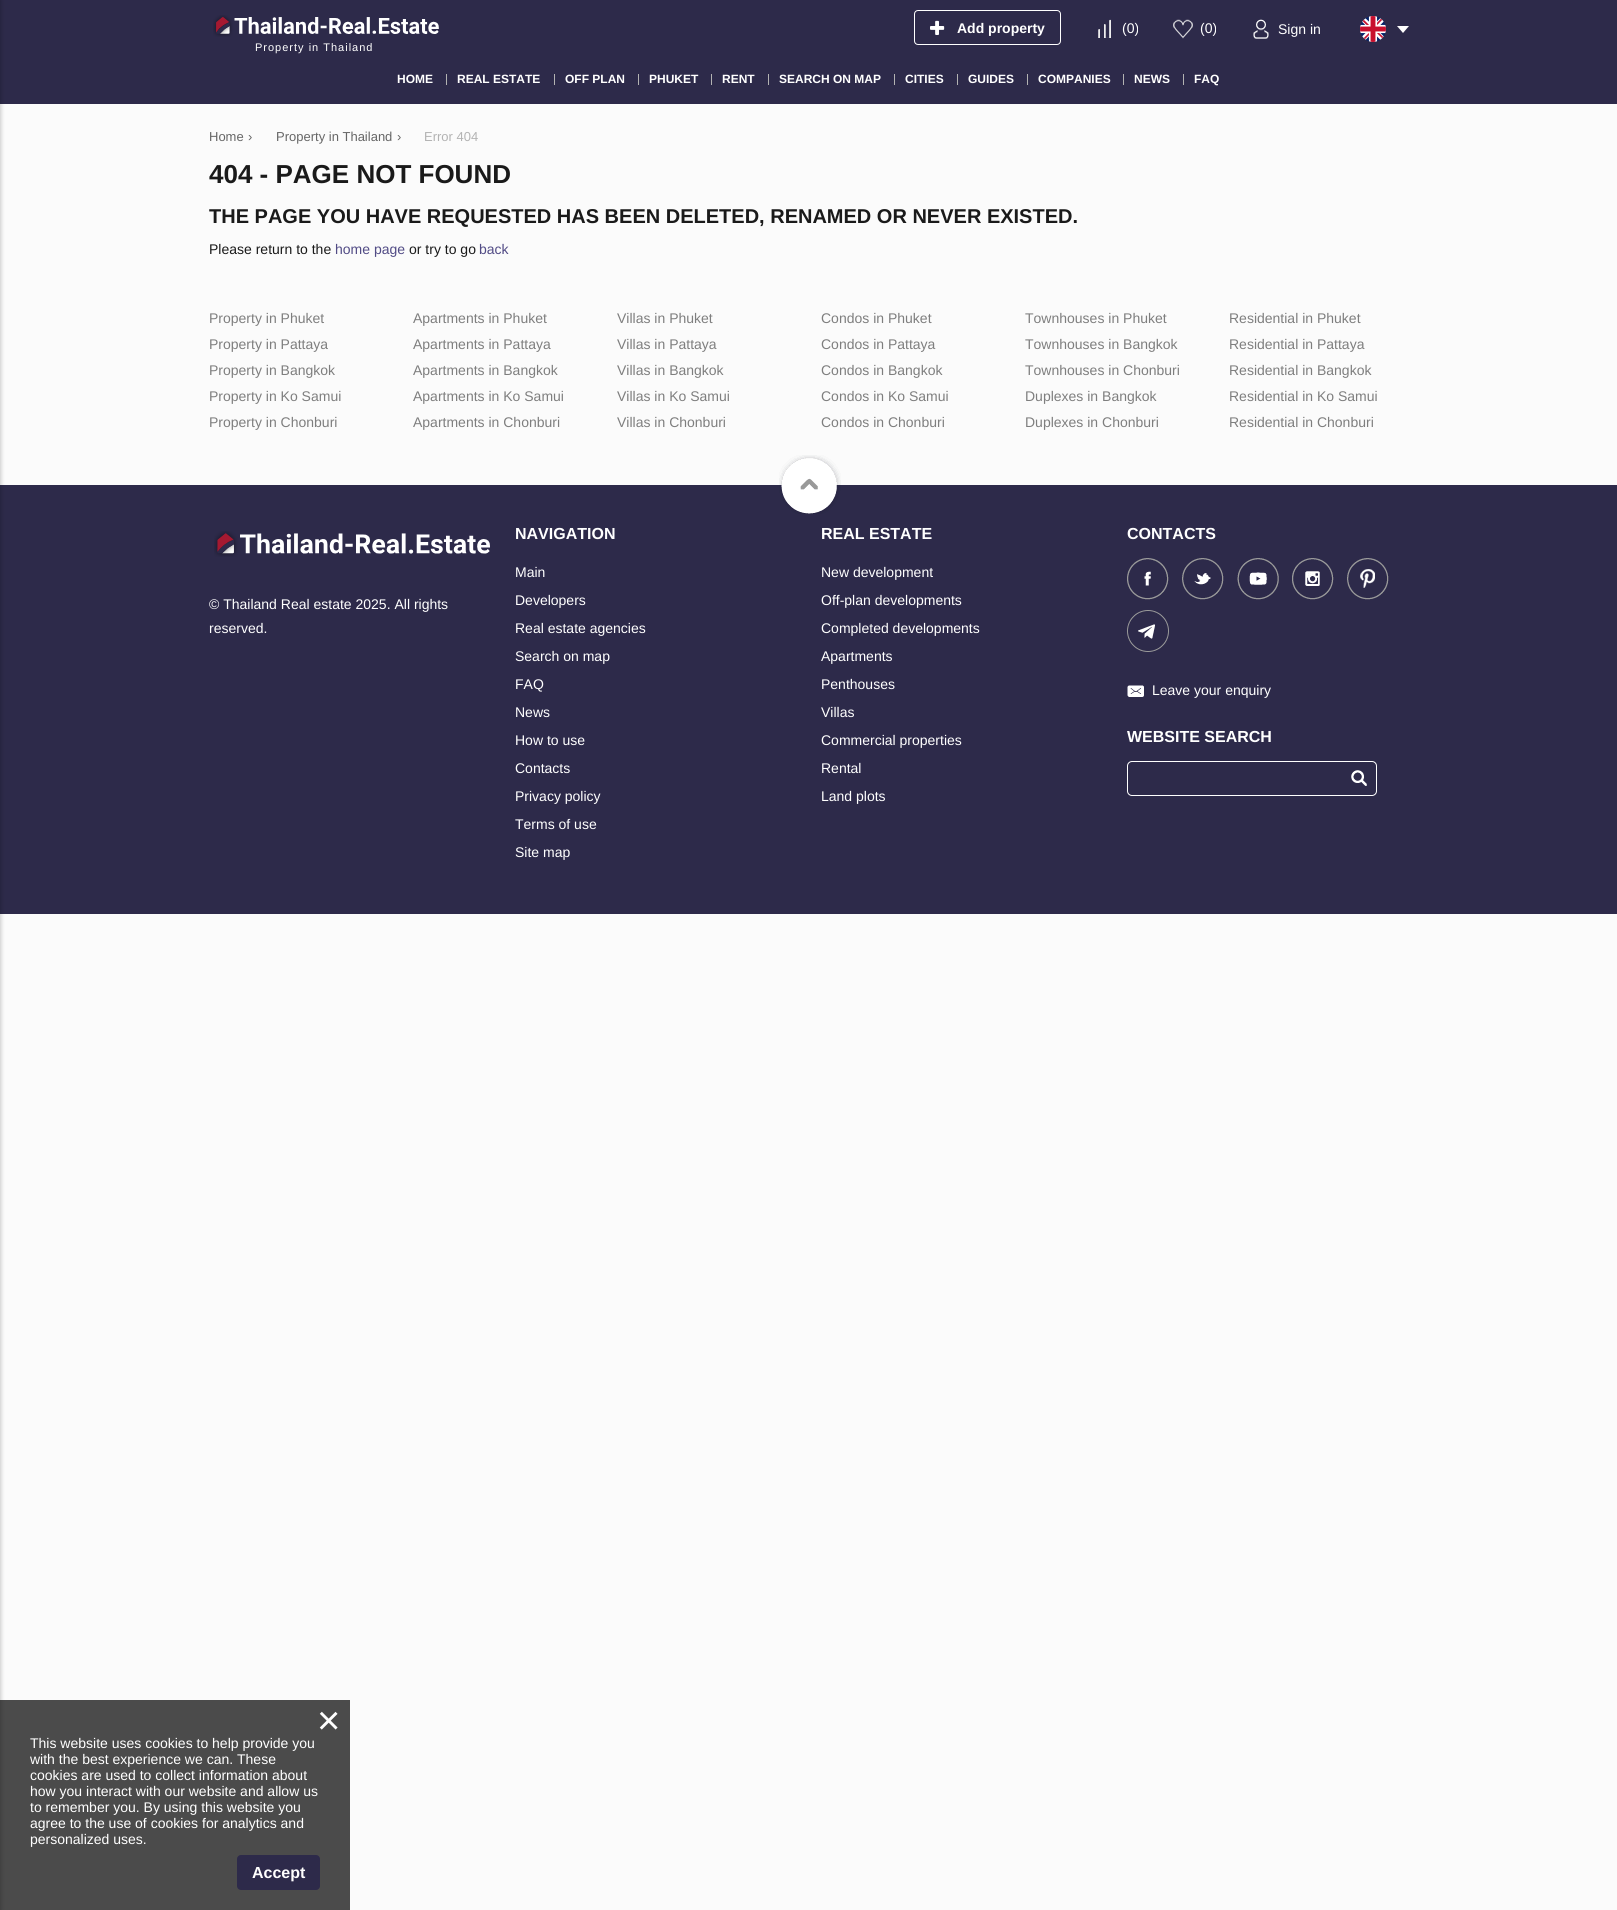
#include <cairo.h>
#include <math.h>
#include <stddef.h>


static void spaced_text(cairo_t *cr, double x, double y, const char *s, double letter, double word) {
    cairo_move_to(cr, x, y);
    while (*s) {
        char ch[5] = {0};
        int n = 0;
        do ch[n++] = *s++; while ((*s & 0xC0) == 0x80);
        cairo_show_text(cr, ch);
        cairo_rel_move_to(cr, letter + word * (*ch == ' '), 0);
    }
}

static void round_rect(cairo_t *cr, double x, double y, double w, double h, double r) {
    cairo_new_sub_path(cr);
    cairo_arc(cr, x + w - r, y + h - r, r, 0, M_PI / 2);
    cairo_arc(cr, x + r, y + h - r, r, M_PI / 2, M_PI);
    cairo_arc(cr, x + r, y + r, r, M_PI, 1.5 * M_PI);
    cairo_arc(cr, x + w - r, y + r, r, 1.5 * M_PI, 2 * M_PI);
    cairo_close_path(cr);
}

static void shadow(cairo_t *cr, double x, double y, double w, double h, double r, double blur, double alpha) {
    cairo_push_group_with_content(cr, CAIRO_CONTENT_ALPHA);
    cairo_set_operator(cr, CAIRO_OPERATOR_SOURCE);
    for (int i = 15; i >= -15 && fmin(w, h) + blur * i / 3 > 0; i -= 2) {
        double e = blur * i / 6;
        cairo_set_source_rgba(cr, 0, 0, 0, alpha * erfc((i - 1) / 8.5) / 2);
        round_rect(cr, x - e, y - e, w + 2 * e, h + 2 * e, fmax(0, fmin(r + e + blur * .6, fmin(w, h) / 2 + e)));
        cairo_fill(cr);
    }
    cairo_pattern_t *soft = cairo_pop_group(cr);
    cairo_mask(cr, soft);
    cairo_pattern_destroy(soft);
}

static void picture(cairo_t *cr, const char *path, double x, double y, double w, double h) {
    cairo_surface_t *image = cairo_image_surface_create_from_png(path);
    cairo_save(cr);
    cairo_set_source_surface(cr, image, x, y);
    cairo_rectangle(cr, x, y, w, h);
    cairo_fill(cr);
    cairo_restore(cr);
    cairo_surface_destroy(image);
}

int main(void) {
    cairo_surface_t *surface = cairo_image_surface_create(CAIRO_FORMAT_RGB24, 1617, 1910);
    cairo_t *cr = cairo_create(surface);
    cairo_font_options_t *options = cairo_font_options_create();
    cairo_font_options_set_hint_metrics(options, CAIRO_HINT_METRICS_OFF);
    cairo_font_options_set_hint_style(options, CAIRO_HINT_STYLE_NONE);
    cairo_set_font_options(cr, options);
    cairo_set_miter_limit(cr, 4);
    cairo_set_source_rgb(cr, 0.984, 0.984, 0.984);
    cairo_paint(cr);
    cairo_set_source_rgb(cr, 0.176, 0.165, 0.29);
    cairo_rectangle(cr, 0, 0, 1617, 104);
    cairo_fill(cr);
    cairo_rectangle(cr, 0, 485, 1617, 429);
    cairo_fill(cr);
    cairo_set_source_rgb(cr, 0, 0, 0);
    shadow(cr, -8, 0, 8, 1910, 0, 2.5, 0.3);
    round_rect(cr, 914.5, 10.5, 146, 34, 3.5);
    cairo_set_source_rgb(cr, 1, 1, 1);
    cairo_set_line_width(cr, 1);
    cairo_stroke(cr);
    picture(cr, "img1.png", 930, 20, 15, 15);
    cairo_select_font_face(cr, "Liberation Sans", CAIRO_FONT_SLANT_NORMAL, CAIRO_FONT_WEIGHT_BOLD);
    cairo_set_font_size(cr, 14);
    cairo_move_to(cr, 957, 33);
    cairo_show_text(cr, "Add property");
    picture(cr, "img2.png", 1098, 19, 13, 19);
    cairo_select_font_face(cr, "Liberation Sans", CAIRO_FONT_SLANT_NORMAL, CAIRO_FONT_WEIGHT_NORMAL);
    cairo_move_to(cr, 1122, 33);
    cairo_show_text(cr, "(0)");
    picture(cr, "img3.png", 1173, 19, 20, 20);
    cairo_move_to(cr, 1200, 33);
    cairo_show_text(cr, "(0)");
    picture(cr, "img4.png", 1253, 19, 16, 20);
    cairo_move_to(cr, 1278, 34);
    cairo_show_text(cr, "Sign in");
    picture(cr, "img5.png", 1360, 16, 26, 26);
    cairo_new_path(cr);
    cairo_move_to(cr, 1397, 26);
    cairo_line_to(cr, 1409, 26);
    cairo_line_to(cr, 1403, 33);
    cairo_close_path(cr);
    cairo_fill(cr);
    picture(cr, "img6.png", 213, 15, 226, 22);
    cairo_set_font_size(cr, 11);
    spaced_text(cr, 255, 51, "Property in Thailand", 1, 0);
    cairo_select_font_face(cr, "Liberation Sans", CAIRO_FONT_SLANT_NORMAL, CAIRO_FONT_WEIGHT_BOLD);
    cairo_set_font_size(cr, 12);
    cairo_move_to(cr, 397, 83);
    cairo_show_text(cr, "HOME");
    cairo_set_source_rgb(cr, 0.702, 0.702, 0.702);
    cairo_rectangle(cr, 446, 74, 1, 11);
    cairo_fill(cr);
    cairo_set_source_rgb(cr, 1, 1, 1);
    cairo_move_to(cr, 457, 83);
    cairo_show_text(cr, "REAL ESTATE");
    cairo_set_source_rgb(cr, 0.702, 0.702, 0.702);
    cairo_rectangle(cr, 554, 74, 1, 11);
    cairo_fill(cr);
    cairo_set_source_rgb(cr, 1, 1, 1);
    cairo_move_to(cr, 565, 83);
    cairo_show_text(cr, "OFF PLAN");
    cairo_set_source_rgb(cr, 0.702, 0.702, 0.702);
    cairo_rectangle(cr, 638, 74, 1, 11);
    cairo_fill(cr);
    cairo_set_source_rgb(cr, 1, 1, 1);
    cairo_move_to(cr, 649, 83);
    cairo_show_text(cr, "PHUKET");
    cairo_set_source_rgb(cr, 0.702, 0.702, 0.702);
    cairo_rectangle(cr, 711, 74, 1, 11);
    cairo_fill(cr);
    cairo_set_source_rgb(cr, 1, 1, 1);
    cairo_move_to(cr, 722, 83);
    cairo_show_text(cr, "RENT");
    cairo_set_source_rgb(cr, 0.702, 0.702, 0.702);
    cairo_rectangle(cr, 768, 74, 1, 11);
    cairo_fill(cr);
    cairo_set_source_rgb(cr, 1, 1, 1);
    cairo_move_to(cr, 779, 83);
    cairo_show_text(cr, "SEARCH ON MAP");
    cairo_set_source_rgb(cr, 0.702, 0.702, 0.702);
    cairo_rectangle(cr, 894, 74, 1, 11);
    cairo_fill(cr);
    cairo_set_source_rgb(cr, 1, 1, 1);
    cairo_move_to(cr, 905, 83);
    cairo_show_text(cr, "CITIES");
    cairo_set_source_rgb(cr, 0.702, 0.702, 0.702);
    cairo_rectangle(cr, 957, 74, 1, 11);
    cairo_fill(cr);
    cairo_set_source_rgb(cr, 1, 1, 1);
    cairo_move_to(cr, 968, 83);
    cairo_show_text(cr, "GUIDES");
    cairo_set_source_rgb(cr, 0.702, 0.702, 0.702);
    cairo_rectangle(cr, 1027, 74, 1, 11);
    cairo_fill(cr);
    cairo_set_source_rgb(cr, 1, 1, 1);
    cairo_move_to(cr, 1038, 83);
    cairo_show_text(cr, "COMPANIES");
    cairo_set_source_rgb(cr, 0.702, 0.702, 0.702);
    cairo_rectangle(cr, 1123, 74, 1, 11);
    cairo_fill(cr);
    cairo_set_source_rgb(cr, 1, 1, 1);
    cairo_move_to(cr, 1134, 83);
    cairo_show_text(cr, "NEWS");
    cairo_set_source_rgb(cr, 0.702, 0.702, 0.702);
    cairo_rectangle(cr, 1183, 74, 1, 11);
    cairo_fill(cr);
    cairo_set_source_rgb(cr, 1, 1, 1);
    cairo_move_to(cr, 1194, 83);
    cairo_show_text(cr, "FAQ");
    cairo_select_font_face(cr, "Liberation Sans", CAIRO_FONT_SLANT_NORMAL, CAIRO_FONT_WEIGHT_NORMAL);
    cairo_set_font_size(cr, 13);
    cairo_set_source_rgb(cr, 0.4, 0.4, 0.4);
    cairo_move_to(cr, 209, 141);
    cairo_show_text(cr, "Home");
    cairo_move_to(cr, 248, 141);
    cairo_show_text(cr, "›");
    cairo_move_to(cr, 276, 141);
    cairo_show_text(cr, "Property in Thailand");
    cairo_move_to(cr, 397, 141);
    cairo_show_text(cr, "›");
    cairo_set_source_rgb(cr, 0.702, 0.702, 0.702);
    cairo_move_to(cr, 424, 141);
    cairo_show_text(cr, "Error 404");
    cairo_select_font_face(cr, "Liberation Sans", CAIRO_FONT_SLANT_NORMAL, CAIRO_FONT_WEIGHT_BOLD);
    cairo_set_font_size(cr, 26);
    cairo_set_source_rgb(cr, 0.102, 0.102, 0.102);
    cairo_move_to(cr, 209, 183);
    cairo_show_text(cr, "404 - PAGE NOT FOUND");
    cairo_set_font_size(cr, 20);
    cairo_move_to(cr, 209, 223);
    cairo_show_text(cr, "THE PAGE YOU HAVE REQUESTED HAS BEEN DELETED, RENAMED OR NEVER EXISTED.");
    cairo_select_font_face(cr, "Liberation Sans", CAIRO_FONT_SLANT_NORMAL, CAIRO_FONT_WEIGHT_NORMAL);
    cairo_set_font_size(cr, 14);
    cairo_move_to(cr, 209, 254);
    cairo_show_text(cr, "Please return to the");
    cairo_set_source_rgb(cr, 0.318, 0.294, 0.522);
    cairo_move_to(cr, 335, 254);
    cairo_show_text(cr, "home page");
    cairo_set_source_rgb(cr, 0.102, 0.102, 0.102);
    cairo_move_to(cr, 409, 254);
    cairo_show_text(cr, "or try to go");
    cairo_set_source_rgb(cr, 0.318, 0.294, 0.522);
    cairo_move_to(cr, 479, 254);
    cairo_show_text(cr, "back");
    cairo_set_source_rgb(cr, 0.494, 0.494, 0.494);
    cairo_move_to(cr, 209, 323);
    cairo_show_text(cr, "Property in Phuket");
    cairo_move_to(cr, 209, 349);
    cairo_show_text(cr, "Property in Pattaya");
    cairo_move_to(cr, 209, 375);
    cairo_show_text(cr, "Property in Bangkok");
    cairo_move_to(cr, 209, 401);
    cairo_show_text(cr, "Property in Ko Samui");
    cairo_move_to(cr, 209, 427);
    cairo_show_text(cr, "Property in Chonburi");
    cairo_move_to(cr, 413, 323);
    cairo_show_text(cr, "Apartments in Phuket");
    cairo_move_to(cr, 413, 349);
    cairo_show_text(cr, "Apartments in Pattaya");
    cairo_move_to(cr, 413, 375);
    cairo_show_text(cr, "Apartments in Bangkok");
    cairo_move_to(cr, 413, 401);
    cairo_show_text(cr, "Apartments in Ko Samui");
    cairo_move_to(cr, 413, 427);
    cairo_show_text(cr, "Apartments in Chonburi");
    cairo_move_to(cr, 617, 323);
    cairo_show_text(cr, "Villas in Phuket");
    cairo_move_to(cr, 617, 349);
    cairo_show_text(cr, "Villas in Pattaya");
    cairo_move_to(cr, 617, 375);
    cairo_show_text(cr, "Villas in Bangkok");
    cairo_move_to(cr, 617, 401);
    cairo_show_text(cr, "Villas in Ko Samui");
    cairo_move_to(cr, 617, 427);
    cairo_show_text(cr, "Villas in Chonburi");
    cairo_move_to(cr, 821, 323);
    cairo_show_text(cr, "Condos in Phuket");
    cairo_move_to(cr, 821, 349);
    cairo_show_text(cr, "Condos in Pattaya");
    cairo_move_to(cr, 821, 375);
    cairo_show_text(cr, "Condos in Bangkok");
    cairo_move_to(cr, 821, 401);
    cairo_show_text(cr, "Condos in Ko Samui");
    cairo_move_to(cr, 821, 427);
    cairo_show_text(cr, "Condos in Chonburi");
    cairo_move_to(cr, 1025, 323);
    cairo_show_text(cr, "Townhouses in Phuket");
    cairo_move_to(cr, 1025, 349);
    cairo_show_text(cr, "Townhouses in Bangkok");
    cairo_move_to(cr, 1025, 375);
    cairo_show_text(cr, "Townhouses in Chonburi");
    cairo_move_to(cr, 1025, 401);
    cairo_show_text(cr, "Duplexes in Bangkok");
    cairo_move_to(cr, 1025, 427);
    cairo_show_text(cr, "Duplexes in Chonburi");
    cairo_move_to(cr, 1229, 323);
    cairo_show_text(cr, "Residential in Phuket");
    cairo_move_to(cr, 1229, 349);
    cairo_show_text(cr, "Residential in Pattaya");
    cairo_move_to(cr, 1229, 375);
    cairo_show_text(cr, "Residential in Bangkok");
    cairo_move_to(cr, 1229, 401);
    cairo_show_text(cr, "Residential in Ko Samui");
    cairo_move_to(cr, 1229, 427);
    cairo_show_text(cr, "Residential in Chonburi");
    picture(cr, "img7.png", 779, 455, 62, 59);
    picture(cr, "img8.png", 214, 531, 276, 26);
    cairo_set_source_rgb(cr, 1, 1, 1);
    cairo_move_to(cr, 209, 609);
    cairo_show_text(cr, "© Thailand Real estate 2025. All rights");
    cairo_move_to(cr, 209, 633);
    cairo_show_text(cr, "reserved.");
    cairo_select_font_face(cr, "Liberation Sans", CAIRO_FONT_SLANT_NORMAL, CAIRO_FONT_WEIGHT_BOLD);
    cairo_set_font_size(cr, 16);
    cairo_move_to(cr, 515, 539);
    cairo_show_text(cr, "NAVIGATION");
    cairo_select_font_face(cr, "Liberation Sans", CAIRO_FONT_SLANT_NORMAL, CAIRO_FONT_WEIGHT_NORMAL);
    cairo_set_font_size(cr, 14);
    cairo_move_to(cr, 515, 577);
    cairo_show_text(cr, "Main");
    cairo_move_to(cr, 515, 605);
    cairo_show_text(cr, "Developers");
    cairo_move_to(cr, 515, 633);
    cairo_show_text(cr, "Real estate agencies");
    cairo_move_to(cr, 515, 661);
    cairo_show_text(cr, "Search on map");
    cairo_move_to(cr, 515, 689);
    cairo_show_text(cr, "FAQ");
    cairo_move_to(cr, 515, 717);
    cairo_show_text(cr, "News");
    cairo_move_to(cr, 515, 745);
    cairo_show_text(cr, "How to use");
    cairo_move_to(cr, 515, 773);
    cairo_show_text(cr, "Contacts");
    cairo_move_to(cr, 515, 801);
    cairo_show_text(cr, "Privacy policy");
    cairo_move_to(cr, 515, 829);
    cairo_show_text(cr, "Terms of use");
    cairo_move_to(cr, 515, 857);
    cairo_show_text(cr, "Site map");
    cairo_select_font_face(cr, "Liberation Sans", CAIRO_FONT_SLANT_NORMAL, CAIRO_FONT_WEIGHT_BOLD);
    cairo_set_font_size(cr, 16);
    cairo_move_to(cr, 821, 539);
    cairo_show_text(cr, "REAL ESTATE");
    cairo_select_font_face(cr, "Liberation Sans", CAIRO_FONT_SLANT_NORMAL, CAIRO_FONT_WEIGHT_NORMAL);
    cairo_set_font_size(cr, 14);
    cairo_move_to(cr, 821, 577);
    cairo_show_text(cr, "New development");
    cairo_move_to(cr, 821, 605);
    cairo_show_text(cr, "Off-plan developments");
    cairo_move_to(cr, 821, 633);
    cairo_show_text(cr, "Completed developments");
    cairo_move_to(cr, 821, 661);
    cairo_show_text(cr, "Apartments");
    cairo_move_to(cr, 821, 689);
    cairo_show_text(cr, "Penthouses");
    cairo_move_to(cr, 821, 717);
    cairo_show_text(cr, "Villas");
    cairo_move_to(cr, 821, 745);
    cairo_show_text(cr, "Commercial properties");
    cairo_move_to(cr, 821, 773);
    cairo_show_text(cr, "Rental");
    cairo_move_to(cr, 821, 801);
    cairo_show_text(cr, "Land plots");
    cairo_select_font_face(cr, "Liberation Sans", CAIRO_FONT_SLANT_NORMAL, CAIRO_FONT_WEIGHT_BOLD);
    cairo_set_font_size(cr, 16);
    cairo_move_to(cr, 1127, 539);
    cairo_show_text(cr, "CONTACTS");
    picture(cr, "img9.png", 1127, 558, 42, 42);
    picture(cr, "img10.png", 1182, 558, 42, 42);
    picture(cr, "img11.png", 1237, 558, 42, 42);
    picture(cr, "img12.png", 1292, 558, 42, 42);
    picture(cr, "img13.png", 1347, 558, 42, 42);
    picture(cr, "img14.png", 1127, 610, 42, 42);
    picture(cr, "img15.png", 1127, 685, 17, 12);
    cairo_select_font_face(cr, "Liberation Sans", CAIRO_FONT_SLANT_NORMAL, CAIRO_FONT_WEIGHT_NORMAL);
    cairo_set_font_size(cr, 14);
    cairo_move_to(cr, 1152, 695);
    cairo_show_text(cr, "Leave your enquiry");
    cairo_select_font_face(cr, "Liberation Sans", CAIRO_FONT_SLANT_NORMAL, CAIRO_FONT_WEIGHT_BOLD);
    cairo_set_font_size(cr, 16);
    cairo_move_to(cr, 1127, 742);
    cairo_show_text(cr, "WEBSITE SEARCH");
    round_rect(cr, 1127.5, 761.5, 249, 34, 4.5);
    cairo_stroke(cr);
    picture(cr, "img16.png", 1351, 770, 16, 16);
    cairo_set_source_rgba(cr, 0, 0, 0, 0.7);
    cairo_rectangle(cr, 0, 1700, 350, 210);
    cairo_fill(cr);
    cairo_select_font_face(cr, "Liberation Sans", CAIRO_FONT_SLANT_NORMAL, CAIRO_FONT_WEIGHT_NORMAL);
    cairo_set_font_size(cr, 40);
    cairo_set_source_rgb(cr, 1, 1, 1);
    cairo_move_to(cr, 317, 1734);
    cairo_show_text(cr, "×");
    cairo_set_font_size(cr, 14);
    cairo_move_to(cr, 30, 1748);
    cairo_show_text(cr, "This website uses cookies to help provide you");
    cairo_move_to(cr, 30, 1764);
    cairo_show_text(cr, "with the best experience we can. These");
    cairo_move_to(cr, 30, 1780);
    cairo_show_text(cr, "cookies are used to collect information about");
    cairo_move_to(cr, 30, 1796);
    cairo_show_text(cr, "how you interact with our website and allow us");
    cairo_move_to(cr, 30, 1812);
    cairo_show_text(cr, "to remember you. By using this website you");
    cairo_move_to(cr, 30, 1828);
    cairo_show_text(cr, "agree to the use of cookies for analytics and");
    cairo_move_to(cr, 30, 1844);
    cairo_show_text(cr, "personalized uses.");
    cairo_set_source_rgb(cr, 0.176, 0.165, 0.29);
    round_rect(cr, 237, 1855, 83, 35, 4);
    cairo_fill(cr);
    cairo_select_font_face(cr, "Liberation Sans", CAIRO_FONT_SLANT_NORMAL, CAIRO_FONT_WEIGHT_BOLD);
    cairo_set_font_size(cr, 16);
    cairo_set_source_rgb(cr, 1, 1, 1);
    cairo_move_to(cr, 252, 1878);
    cairo_show_text(cr, "Accept");
    cairo_surface_write_to_png(surface, "page.png");
    cairo_font_options_destroy(options);
    cairo_destroy(cr);
    cairo_surface_destroy(surface);
    return 0;
}
